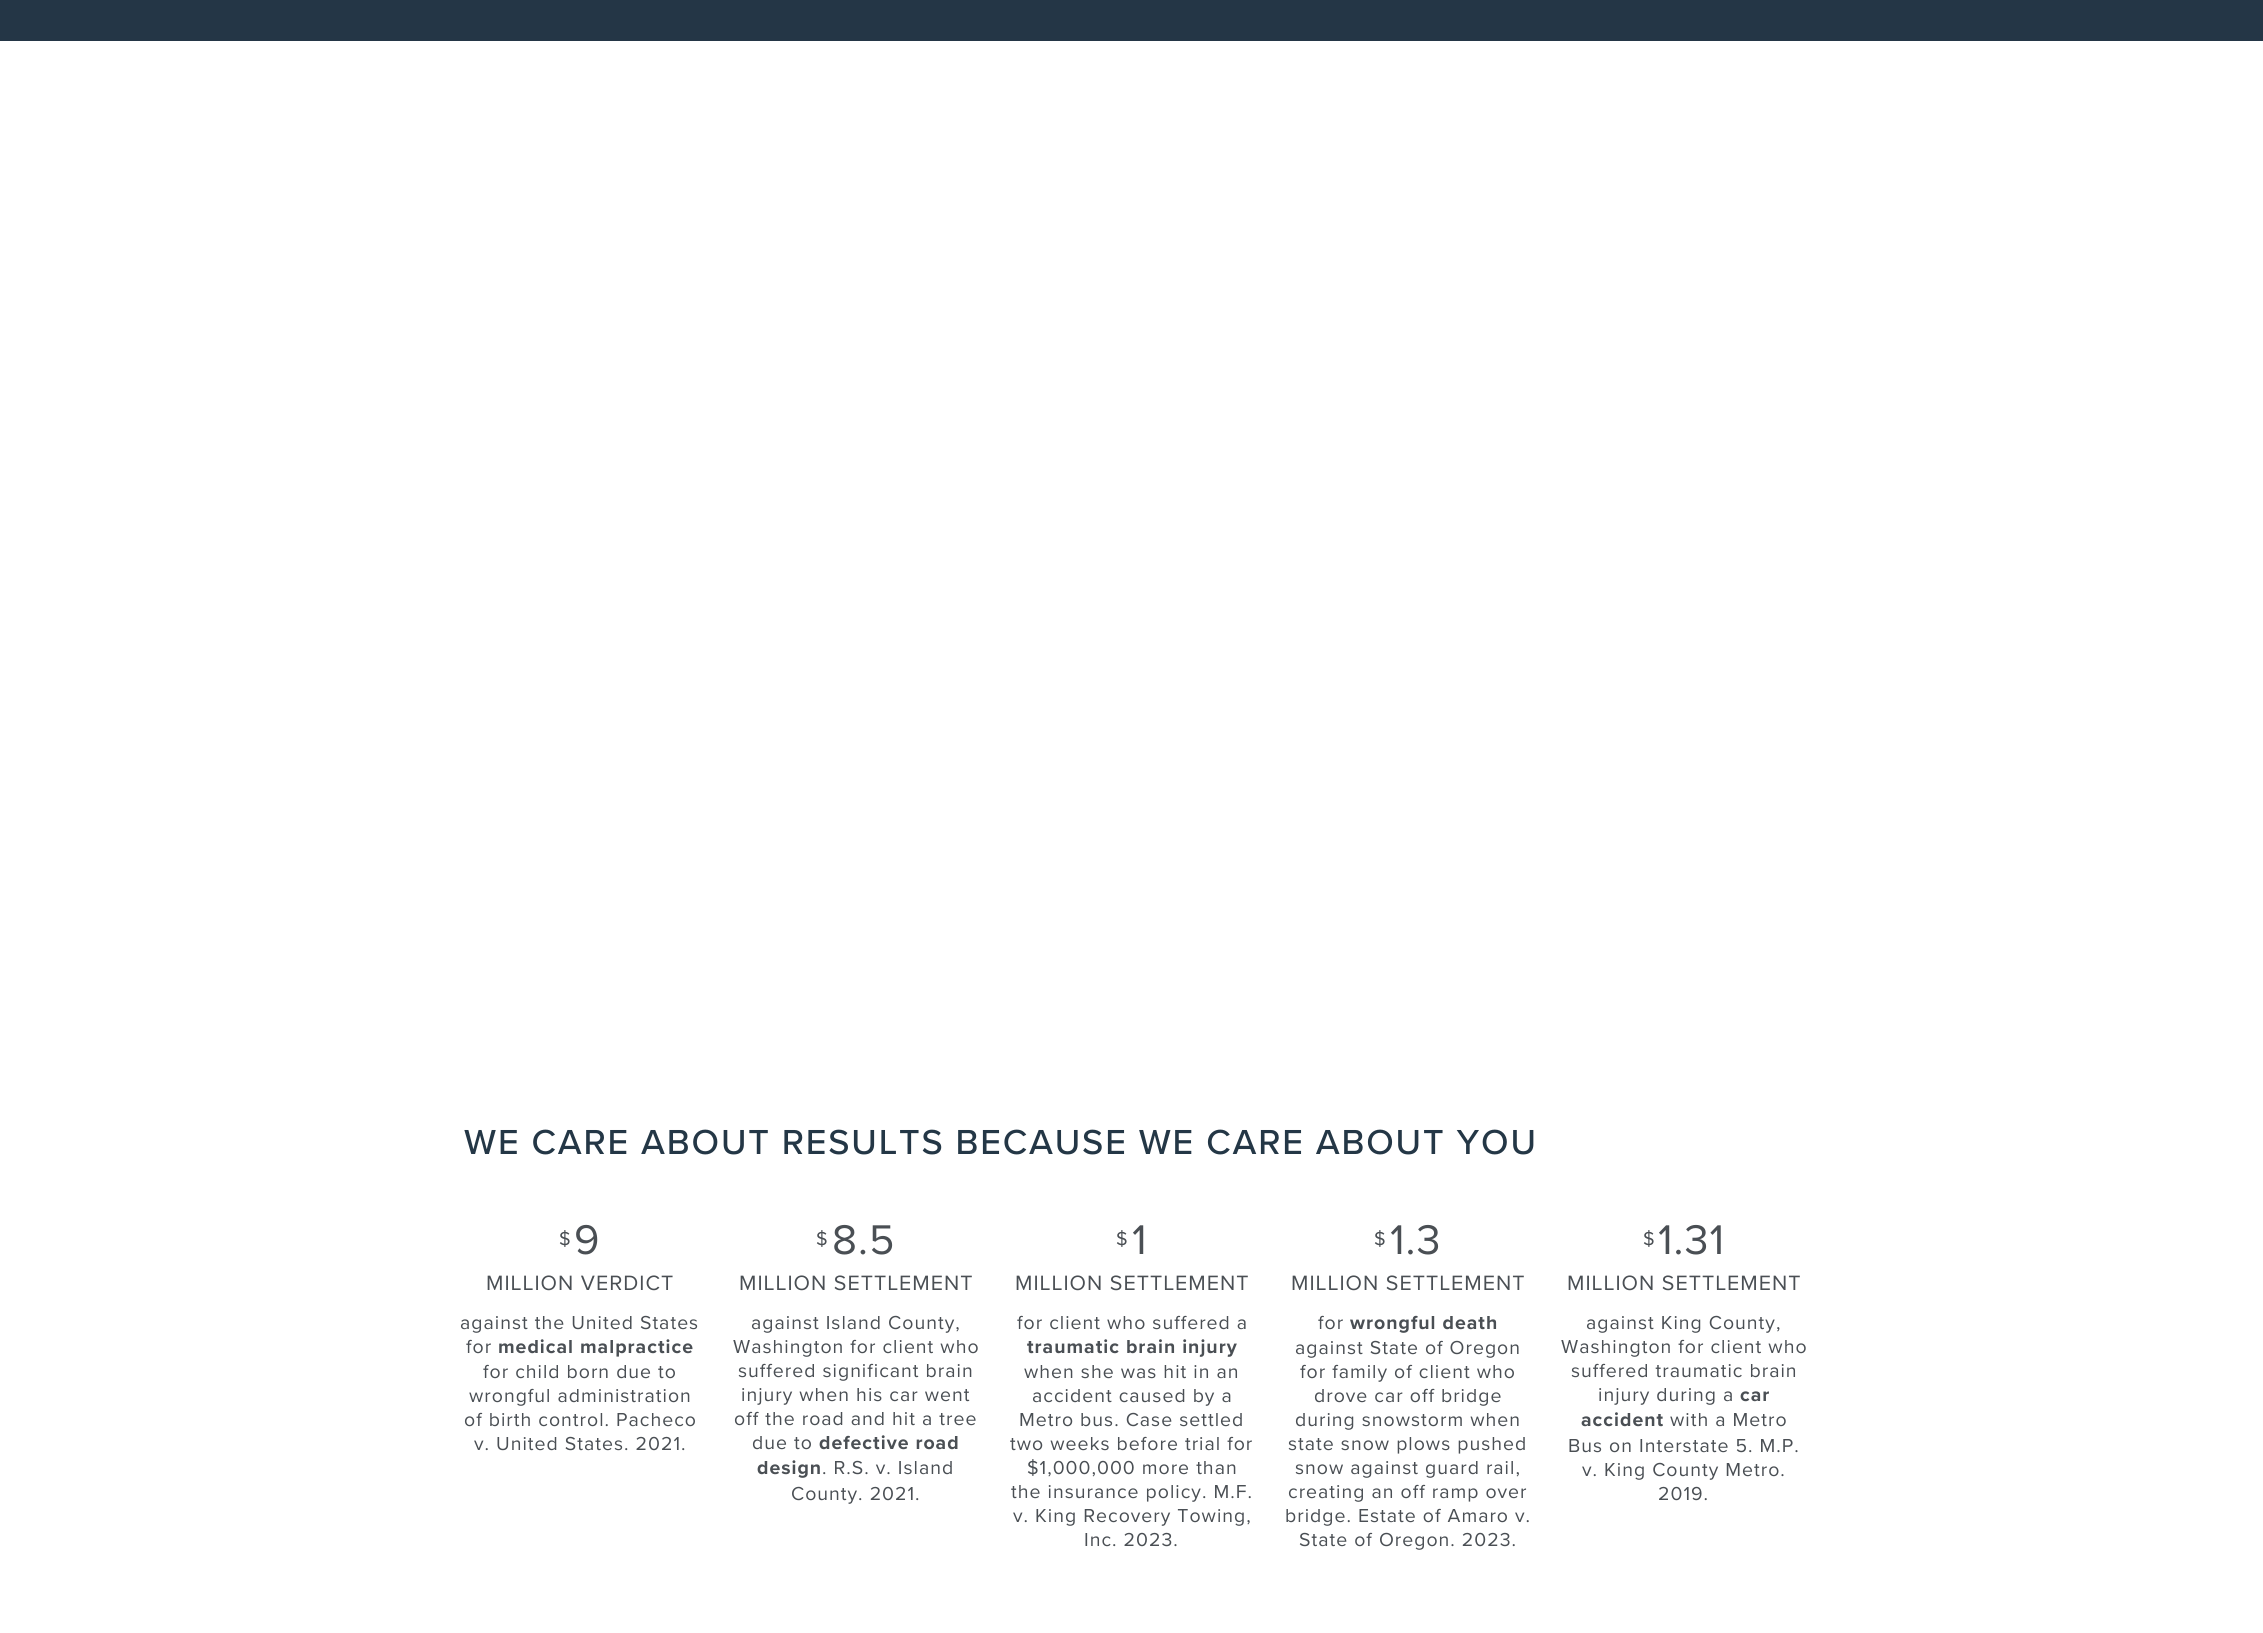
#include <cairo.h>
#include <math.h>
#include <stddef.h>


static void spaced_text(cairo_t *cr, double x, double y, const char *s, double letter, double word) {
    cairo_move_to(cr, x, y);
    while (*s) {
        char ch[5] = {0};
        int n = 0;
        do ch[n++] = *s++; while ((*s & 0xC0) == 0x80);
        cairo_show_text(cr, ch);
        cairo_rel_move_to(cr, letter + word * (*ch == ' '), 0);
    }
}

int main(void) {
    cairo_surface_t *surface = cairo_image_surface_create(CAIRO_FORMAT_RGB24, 2263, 1633);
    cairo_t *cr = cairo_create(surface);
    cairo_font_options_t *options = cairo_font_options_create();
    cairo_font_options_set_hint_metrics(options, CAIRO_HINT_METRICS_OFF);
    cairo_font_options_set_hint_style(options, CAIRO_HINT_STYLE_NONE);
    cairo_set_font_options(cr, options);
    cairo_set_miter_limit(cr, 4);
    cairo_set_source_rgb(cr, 1, 1, 1);
    cairo_paint(cr);
    cairo_set_source_rgb(cr, 0.141, 0.212, 0.275);
    cairo_rectangle(cr, 0, 0, 2263, 41);
    cairo_fill(cr);
    cairo_select_font_face(cr, "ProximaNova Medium", CAIRO_FONT_SLANT_NORMAL, CAIRO_FONT_WEIGHT_NORMAL);
    cairo_set_font_size(cr, 36);
    cairo_set_source_rgb(cr, 0.141, 0.216, 0.275);
    spaced_text(cr, 464, 1154, "WE CARE ABOUT RESULTS BECAUSE WE CARE ABOUT YOU", 1.8, 0);
    cairo_select_font_face(cr, "ProximaNova", CAIRO_FONT_SLANT_NORMAL, CAIRO_FONT_WEIGHT_NORMAL);
    cairo_set_font_size(cr, 19.5);
    cairo_set_source_rgb(cr, 0.29, 0.31, 0.329);
    spaced_text(cr, 559, 1245, "$", 1, 0);
    cairo_set_font_size(cr, 43);
    spaced_text(cr, 574, 1254, "9", 1, 0);
    cairo_set_font_size(cr, 21.5);
    spaced_text(cr, 486, 1290, "MILLION VERDICT", 1, 0);
    cairo_set_font_size(cr, 19.5);
    spaced_text(cr, 460, 1329, "against the United States", 1, 0);
    spaced_text(cr, 466, 1353, "for", 1, 0);
    cairo_select_font_face(cr, "ProximaNova", CAIRO_FONT_SLANT_NORMAL, CAIRO_FONT_WEIGHT_BOLD);
    spaced_text(cr, 498, 1353, "medical malpractice", 1, 0);
    cairo_select_font_face(cr, "ProximaNova", CAIRO_FONT_SLANT_NORMAL, CAIRO_FONT_WEIGHT_NORMAL);
    spaced_text(cr, 483, 1378, "for child born due to", 1, 0);
    spaced_text(cr, 469, 1402, "wrongful administration", 1, 0);
    spaced_text(cr, 464, 1426, "of birth control. Pacheco", 1, 0);
    spaced_text(cr, 474, 1450, "v. United States. 2021.", 1, 0);
    spaced_text(cr, 816, 1245, "$", 1, 0);
    cairo_set_font_size(cr, 43);
    spaced_text(cr, 832, 1254, "8.5", 1, 0);
    cairo_set_font_size(cr, 21.5);
    spaced_text(cr, 739, 1290, "MILLION SETTLEMENT", 1, 0);
    cairo_set_font_size(cr, 19.5);
    spaced_text(cr, 751, 1329, "against Island County,", 1, 0);
    spaced_text(cr, 733, 1353, "Washington for client who", 1, 0);
    spaced_text(cr, 738, 1377, "suffered significant brain", 1, 0);
    spaced_text(cr, 741, 1401, "injury when his car went", 1, 0);
    spaced_text(cr, 734, 1425, "off the road and hit a tree", 1, 0);
    spaced_text(cr, 752, 1449, "due to", 1, 0);
    cairo_select_font_face(cr, "ProximaNova", CAIRO_FONT_SLANT_NORMAL, CAIRO_FONT_WEIGHT_BOLD);
    spaced_text(cr, 819, 1449, "defective road", 1, 0);
    spaced_text(cr, 757, 1474, "design", 1, 0);
    cairo_select_font_face(cr, "ProximaNova", CAIRO_FONT_SLANT_NORMAL, CAIRO_FONT_WEIGHT_NORMAL);
    spaced_text(cr, 822, 1474, ". R.S. v. Island", 1, 0);
    spaced_text(cr, 791, 1500, "County. 2021.", 1, 0);
    spaced_text(cr, 1116, 1245, "$", 1, 0);
    cairo_set_font_size(cr, 43);
    spaced_text(cr, 1132, 1254, "1", 1, 0);
    cairo_set_font_size(cr, 21.5);
    spaced_text(cr, 1015, 1290, "MILLION SETTLEMENT", 1, 0);
    cairo_set_font_size(cr, 19.5);
    spaced_text(cr, 1017, 1329, "for client who suffered a", 1, 0);
    cairo_select_font_face(cr, "ProximaNova", CAIRO_FONT_SLANT_NORMAL, CAIRO_FONT_WEIGHT_BOLD);
    spaced_text(cr, 1027, 1353, "traumatic brain injury", 1, 0);
    cairo_select_font_face(cr, "ProximaNova", CAIRO_FONT_SLANT_NORMAL, CAIRO_FONT_WEIGHT_NORMAL);
    spaced_text(cr, 1024, 1378, "when she was hit in an", 1, 0);
    spaced_text(cr, 1032, 1402, "accident caused by a", 1, 0);
    spaced_text(cr, 1019, 1426, "Metro bus. Case settled", 1, 0);
    spaced_text(cr, 1010, 1450, "two weeks before trial for", 1, 0);
    spaced_text(cr, 1027, 1474, "$1,000,000 more than", 1, 0);
    spaced_text(cr, 1011, 1498, "the insurance policy. M.F.", 1, 0);
    spaced_text(cr, 1013, 1522, "v. King Recovery Towing,", 1, 0);
    spaced_text(cr, 1084, 1546, "Inc. 2023.", 1, 0);
    spaced_text(cr, 1374, 1245, "$", 1, 0);
    cairo_set_font_size(cr, 43);
    spaced_text(cr, 1390, 1254, "1.3", 1, 0);
    cairo_set_font_size(cr, 21.5);
    spaced_text(cr, 1291, 1290, "MILLION SETTLEMENT", 1, 0);
    cairo_set_font_size(cr, 19.5);
    spaced_text(cr, 1318, 1329, "for", 1, 0);
    cairo_select_font_face(cr, "ProximaNova", CAIRO_FONT_SLANT_NORMAL, CAIRO_FONT_WEIGHT_BOLD);
    spaced_text(cr, 1350, 1329, "wrongful death", 1, 0);
    cairo_select_font_face(cr, "ProximaNova", CAIRO_FONT_SLANT_NORMAL, CAIRO_FONT_WEIGHT_NORMAL);
    spaced_text(cr, 1295, 1354, "against State of Oregon", 1, 0);
    spaced_text(cr, 1300, 1378, "for family of client who", 1, 0);
    spaced_text(cr, 1314, 1402, "drove car off bridge", 1, 0);
    spaced_text(cr, 1295, 1426, "during snowstorm when", 1, 0);
    spaced_text(cr, 1288, 1450, "state snow plows pushed", 1, 0);
    spaced_text(cr, 1295, 1474, "snow against guard rail,", 1, 0);
    spaced_text(cr, 1288, 1498, "creating an off ramp over", 1, 0);
    spaced_text(cr, 1285, 1522, "bridge. Estate of Amaro v.", 1, 0);
    spaced_text(cr, 1299, 1546, "State of Oregon. 2023.", 1, 0);
    spaced_text(cr, 1643, 1245, "$", 1, 0);
    cairo_set_font_size(cr, 43);
    spaced_text(cr, 1658, 1254, "1.31", 1, 0);
    cairo_set_font_size(cr, 21.5);
    spaced_text(cr, 1567, 1290, "MILLION SETTLEMENT", 1, 0);
    cairo_set_font_size(cr, 19.5);
    spaced_text(cr, 1586, 1329, "against King County,", 1, 0);
    spaced_text(cr, 1561, 1353, "Washington for client who", 1, 0);
    spaced_text(cr, 1571, 1377, "suffered traumatic brain", 1, 0);
    spaced_text(cr, 1598, 1401, "injury during a", 1, 0);
    cairo_select_font_face(cr, "ProximaNova", CAIRO_FONT_SLANT_NORMAL, CAIRO_FONT_WEIGHT_BOLD);
    spaced_text(cr, 1740, 1401, "car", 1, 0);
    spaced_text(cr, 1581, 1426, "accident", 1, 0);
    cairo_select_font_face(cr, "ProximaNova", CAIRO_FONT_SLANT_NORMAL, CAIRO_FONT_WEIGHT_NORMAL);
    spaced_text(cr, 1670, 1426, "with a Metro", 1, 0);
    spaced_text(cr, 1568, 1452, "Bus on Interstate 5. M.P.", 1, 0);
    spaced_text(cr, 1582, 1476, "v. King County Metro.", 1, 0);
    spaced_text(cr, 1658, 1500, "2019.", 1, 0);
    cairo_surface_write_to_png(surface, "page.png");
    cairo_font_options_destroy(options);
    cairo_destroy(cr);
    cairo_surface_destroy(surface);
    return 0;
}
